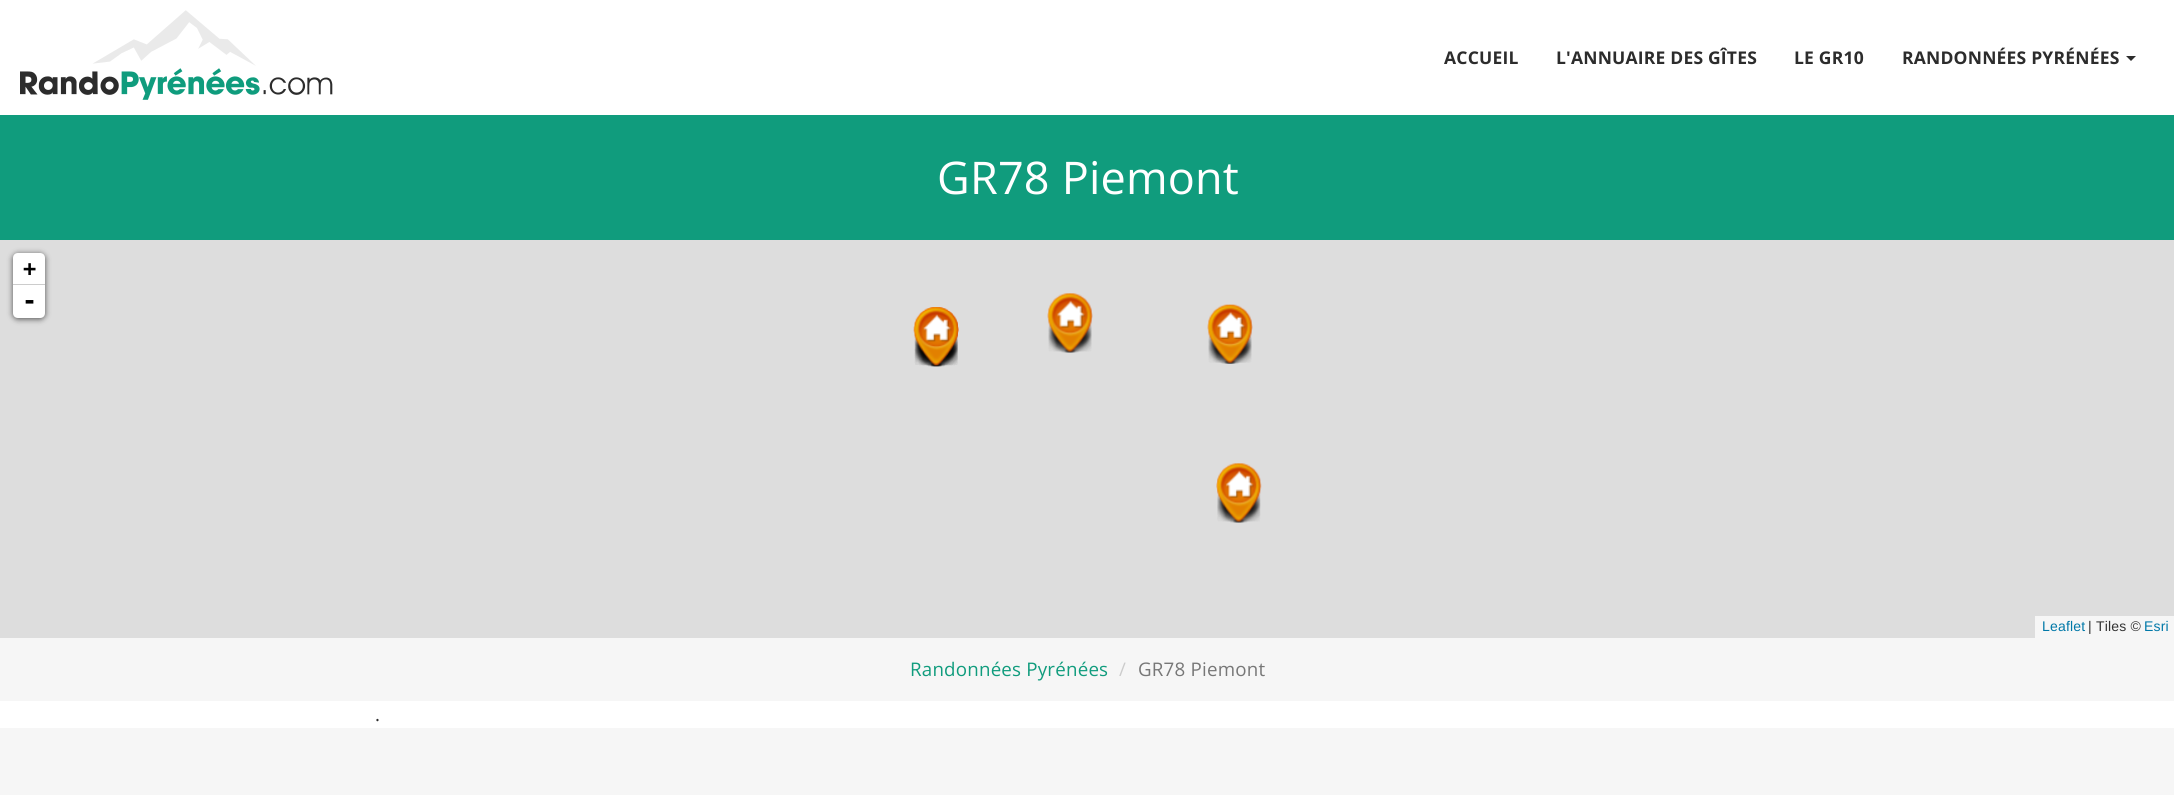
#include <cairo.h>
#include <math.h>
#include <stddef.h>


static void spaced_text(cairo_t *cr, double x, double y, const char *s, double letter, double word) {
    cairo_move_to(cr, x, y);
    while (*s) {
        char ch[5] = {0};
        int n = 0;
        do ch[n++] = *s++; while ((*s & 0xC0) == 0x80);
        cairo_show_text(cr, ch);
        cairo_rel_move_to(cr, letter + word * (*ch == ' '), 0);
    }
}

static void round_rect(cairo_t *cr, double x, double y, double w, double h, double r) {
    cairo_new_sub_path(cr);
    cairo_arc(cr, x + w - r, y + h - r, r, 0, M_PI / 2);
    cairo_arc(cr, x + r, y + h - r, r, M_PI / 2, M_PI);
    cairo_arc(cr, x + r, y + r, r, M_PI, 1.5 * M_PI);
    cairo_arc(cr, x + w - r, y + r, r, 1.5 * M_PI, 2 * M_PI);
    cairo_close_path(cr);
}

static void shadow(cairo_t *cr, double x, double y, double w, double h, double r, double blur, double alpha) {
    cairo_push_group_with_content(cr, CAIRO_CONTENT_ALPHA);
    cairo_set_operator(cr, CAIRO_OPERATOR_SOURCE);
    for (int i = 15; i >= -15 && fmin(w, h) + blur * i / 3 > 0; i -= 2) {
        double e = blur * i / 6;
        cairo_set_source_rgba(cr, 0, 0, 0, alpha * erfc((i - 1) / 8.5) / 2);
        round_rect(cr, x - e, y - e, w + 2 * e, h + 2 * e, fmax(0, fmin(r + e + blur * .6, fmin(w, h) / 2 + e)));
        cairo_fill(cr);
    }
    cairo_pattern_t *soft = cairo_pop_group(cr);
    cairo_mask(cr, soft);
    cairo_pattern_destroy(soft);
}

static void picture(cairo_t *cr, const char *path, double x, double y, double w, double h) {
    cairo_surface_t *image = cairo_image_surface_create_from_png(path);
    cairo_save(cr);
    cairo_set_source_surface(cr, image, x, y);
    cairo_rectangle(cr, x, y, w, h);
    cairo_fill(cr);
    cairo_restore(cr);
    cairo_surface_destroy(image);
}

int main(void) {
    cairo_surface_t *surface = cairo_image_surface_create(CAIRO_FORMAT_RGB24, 2174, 795);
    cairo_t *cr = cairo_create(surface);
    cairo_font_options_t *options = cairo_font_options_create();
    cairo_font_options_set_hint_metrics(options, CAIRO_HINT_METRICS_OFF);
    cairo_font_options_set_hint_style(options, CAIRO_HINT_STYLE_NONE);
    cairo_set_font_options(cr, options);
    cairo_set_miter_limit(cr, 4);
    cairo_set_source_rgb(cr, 1, 1, 1);
    cairo_paint(cr);
    picture(cr, "img1.png", 20, 10, 313, 90);
    cairo_select_font_face(cr, "Open Sans", CAIRO_FONT_SLANT_NORMAL, CAIRO_FONT_WEIGHT_BOLD);
    cairo_set_font_size(cr, 17.5);
    cairo_set_source_rgb(cr, 0.173, 0.173, 0.173);
    spaced_text(cr, 1444, 64, "ACCUEIL", 0.2, 0);
    spaced_text(cr, 1556, 64, "L'ANNUAIRE DES GÎTES", 0.2, 0);
    spaced_text(cr, 1794, 64, "LE GR10", 0.2, 0);
    spaced_text(cr, 1902, 64, "RANDONNÉES PYRÉNÉES", 0.2, 0);
    cairo_new_path(cr);
    cairo_move_to(cr, 2126, 56);
    cairo_line_to(cr, 2136, 56);
    cairo_line_to(cr, 2131, 61);
    cairo_close_path(cr);
    cairo_fill(cr);
    cairo_set_source_rgb(cr, 0.063, 0.612, 0.49);
    cairo_rectangle(cr, 0, 115, 2174, 125);
    cairo_fill(cr);
    cairo_select_font_face(cr, "Open Sans", CAIRO_FONT_SLANT_NORMAL, CAIRO_FONT_WEIGHT_NORMAL);
    cairo_set_font_size(cr, 45);
    cairo_set_source_rgb(cr, 1, 1, 1);
    spaced_text(cr, 937, 194, "GR78 Piemont", 0.2, 0);
    cairo_set_source_rgb(cr, 0.867, 0.867, 0.867);
    cairo_rectangle(cr, 0, 240, 2174, 398);
    cairo_fill(cr);
    cairo_set_source_rgb(cr, 0, 0, 0);
    shadow(cr, 13, 254, 32, 65, 5, 3, 0.65);
    cairo_set_source_rgb(cr, 1, 1, 1);
    cairo_new_path(cr);
    cairo_move_to(cr, 18, 253);
    cairo_line_to(cr, 40, 253);
    cairo_curve_to(cr, 43, 253, 45, 255, 45, 258);
    cairo_line_to(cr, 45, 285);
    cairo_line_to(cr, 13, 285);
    cairo_line_to(cr, 13, 258);
    cairo_curve_to(cr, 13, 255, 15, 253, 18, 253);
    cairo_close_path(cr);
    cairo_fill(cr);
    cairo_set_source_rgb(cr, 0.8, 0.8, 0.8);
    cairo_rectangle(cr, 13, 284, 32, 1);
    cairo_fill(cr);
    cairo_select_font_face(cr, "DejaVu Sans Mono", CAIRO_FONT_SLANT_NORMAL, CAIRO_FONT_WEIGHT_BOLD);
    cairo_set_font_size(cr, 22);
    cairo_set_source_rgb(cr, 0, 0, 0);
    spaced_text(cr, 23, 276, "+", 0.2, 0);
    cairo_set_source_rgb(cr, 1, 1, 1);
    cairo_new_path(cr);
    cairo_move_to(cr, 13, 285);
    cairo_line_to(cr, 45, 285);
    cairo_line_to(cr, 45, 313);
    cairo_curve_to(cr, 45, 316, 43, 318, 40, 318);
    cairo_line_to(cr, 18, 318);
    cairo_curve_to(cr, 15, 318, 13, 316, 13, 313);
    cairo_close_path(cr);
    cairo_fill(cr);
    cairo_set_font_size(cr, 25);
    cairo_set_source_rgb(cr, 0, 0, 0);
    spaced_text(cr, 22, 309, "-", 0.2, 0);
    cairo_set_source_rgb(cr, 0.961, 0.961, 0.961);
    cairo_rectangle(cr, 2035, 616, 139, 22);
    cairo_fill(cr);
    cairo_select_font_face(cr, "Liberation Sans", CAIRO_FONT_SLANT_NORMAL, CAIRO_FONT_WEIGHT_NORMAL);
    cairo_set_font_size(cr, 14);
    cairo_set_source_rgb(cr, 0, 0.471, 0.659);
    spaced_text(cr, 2042, 631, "Leaflet", 0.2, 0);
    cairo_set_source_rgb(cr, 0.2, 0.2, 0.2);
    spaced_text(cr, 2088, 631, "| Tiles ©", 0.2, 0);
    cairo_set_source_rgb(cr, 0, 0.471, 0.659);
    spaced_text(cr, 2144, 631, "Esri", 0.2, 0);
    picture(cr, "img2.png", 1047, 293, 46, 60);
    picture(cr, "img3.png", 1047, 293, 46, 60);
    picture(cr, "img4.png", 1207, 304, 46, 60);
    picture(cr, "img5.png", 913, 307, 46, 60);
    picture(cr, "img6.png", 1207, 304, 46, 60);
    picture(cr, "img7.png", 913, 307, 46, 60);
    picture(cr, "img8.png", 913, 307, 46, 60);
    picture(cr, "img9.png", 913, 307, 46, 60);
    picture(cr, "img10.png", 1216, 463, 46, 60);
    picture(cr, "img11.png", 1216, 463, 46, 60);
    cairo_set_source_rgb(cr, 0.961, 0.961, 0.961);
    cairo_rectangle(cr, 0, 638, 2174, 63);
    cairo_fill(cr);
    cairo_select_font_face(cr, "Open Sans", CAIRO_FONT_SLANT_NORMAL, CAIRO_FONT_WEIGHT_NORMAL);
    cairo_set_font_size(cr, 18.75);
    cairo_set_source_rgb(cr, 0.063, 0.612, 0.49);
    spaced_text(cr, 910, 676, "Randonnées Pyrénées", 0.2, 0);
    cairo_set_source_rgb(cr, 0.8, 0.8, 0.8);
    spaced_text(cr, 1119, 676, "/", 0.2, 0);
    cairo_set_source_rgb(cr, 0.467, 0.467, 0.467);
    spaced_text(cr, 1138, 676, "GR78 Piemont", 0.2, 0);
    cairo_set_source_rgb(cr, 0.173, 0.173, 0.173);
    spaced_text(cr, 375, 721, ".", 0.2, 0);
    cairo_set_source_rgb(cr, 0.961, 0.961, 0.961);
    cairo_rectangle(cr, 0, 728, 2174, 67);
    cairo_fill(cr);
    cairo_surface_write_to_png(surface, "page.png");
    cairo_font_options_destroy(options);
    cairo_destroy(cr);
    cairo_surface_destroy(surface);
    return 0;
}
